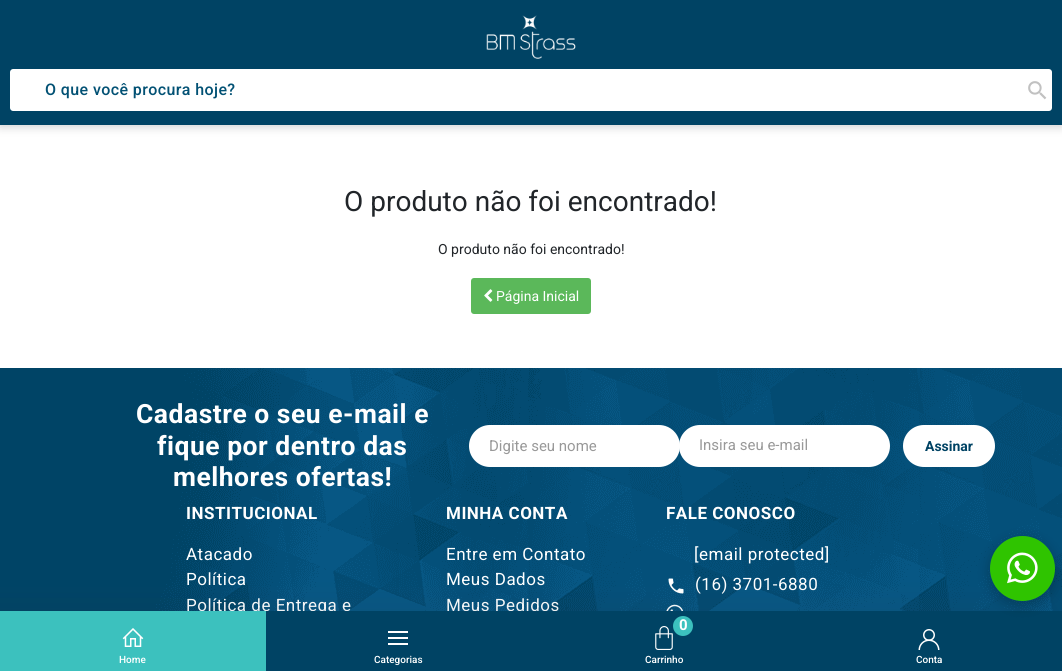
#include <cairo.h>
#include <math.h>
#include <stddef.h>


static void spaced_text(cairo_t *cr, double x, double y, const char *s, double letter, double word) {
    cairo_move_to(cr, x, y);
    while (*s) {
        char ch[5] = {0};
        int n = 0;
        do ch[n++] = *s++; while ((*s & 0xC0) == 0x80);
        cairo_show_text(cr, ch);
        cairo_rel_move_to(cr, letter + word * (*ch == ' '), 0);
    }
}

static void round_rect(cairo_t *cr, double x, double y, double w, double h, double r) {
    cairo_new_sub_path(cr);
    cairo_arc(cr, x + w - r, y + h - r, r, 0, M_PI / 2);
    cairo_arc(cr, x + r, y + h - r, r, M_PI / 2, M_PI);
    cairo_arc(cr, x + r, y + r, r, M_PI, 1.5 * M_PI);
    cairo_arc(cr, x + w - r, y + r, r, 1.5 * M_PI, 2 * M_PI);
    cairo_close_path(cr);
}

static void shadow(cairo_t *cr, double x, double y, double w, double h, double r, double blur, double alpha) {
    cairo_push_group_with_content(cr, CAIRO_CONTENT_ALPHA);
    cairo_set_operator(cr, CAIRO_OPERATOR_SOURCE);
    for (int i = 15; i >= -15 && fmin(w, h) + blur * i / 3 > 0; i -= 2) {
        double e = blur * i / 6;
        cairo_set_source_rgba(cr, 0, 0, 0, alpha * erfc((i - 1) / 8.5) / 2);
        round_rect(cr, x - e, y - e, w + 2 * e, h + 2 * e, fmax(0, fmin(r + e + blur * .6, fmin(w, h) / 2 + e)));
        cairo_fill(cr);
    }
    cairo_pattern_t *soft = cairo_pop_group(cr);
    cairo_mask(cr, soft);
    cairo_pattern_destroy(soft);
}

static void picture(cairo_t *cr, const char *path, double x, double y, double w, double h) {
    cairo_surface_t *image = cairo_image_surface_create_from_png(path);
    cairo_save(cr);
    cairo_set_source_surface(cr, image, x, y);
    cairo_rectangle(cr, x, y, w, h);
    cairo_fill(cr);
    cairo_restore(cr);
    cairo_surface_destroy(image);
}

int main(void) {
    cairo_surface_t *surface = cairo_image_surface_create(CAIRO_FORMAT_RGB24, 1062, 671);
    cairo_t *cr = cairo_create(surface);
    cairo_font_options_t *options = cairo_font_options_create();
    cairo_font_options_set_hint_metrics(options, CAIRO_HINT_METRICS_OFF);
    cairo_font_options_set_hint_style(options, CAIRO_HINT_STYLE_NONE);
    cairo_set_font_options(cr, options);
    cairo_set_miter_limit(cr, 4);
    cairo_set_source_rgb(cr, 1, 1, 1);
    cairo_paint(cr);
    cairo_set_source_rgb(cr, 0.263, 0.263, 0.271);
    shadow(cr, 0, 1, 1062, 125, 0, 5, 0.3);
    cairo_set_source_rgb(cr, 0, 0.263, 0.392);
    cairo_rectangle(cr, 0, 0, 1062, 125);
    cairo_fill(cr);
    picture(cr, "img1.png", 486, 15, 90, 44);
    cairo_set_source_rgb(cr, 1, 1, 1);
    cairo_new_path(cr);
    cairo_move_to(cr, 13, 69);
    cairo_line_to(cr, 1024, 69);
    cairo_line_to(cr, 1024, 111);
    cairo_line_to(cr, 13, 111);
    cairo_curve_to(cr, 11.5, 111, 10, 109.5, 10, 108);
    cairo_line_to(cr, 10, 72);
    cairo_curve_to(cr, 10, 70.5, 11.5, 69, 13, 69);
    cairo_close_path(cr);
    cairo_fill(cr);
    cairo_select_font_face(cr, "Roboto Medium", CAIRO_FONT_SLANT_NORMAL, CAIRO_FONT_WEIGHT_NORMAL);
    cairo_set_font_size(cr, 16);
    cairo_set_source_rgb(cr, 0.008, 0.318, 0.455);
    spaced_text(cr, 45, 95, "O que você procura hoje?", 0.4, 0);
    cairo_set_source_rgb(cr, 1, 1, 1);
    cairo_new_path(cr);
    cairo_move_to(cr, 1023, 69);
    cairo_line_to(cr, 1049, 69);
    cairo_curve_to(cr, 1050.5, 69, 1052, 70.5, 1052, 72);
    cairo_line_to(cr, 1052, 108);
    cairo_curve_to(cr, 1052, 109.5, 1050.5, 111, 1049, 111);
    cairo_line_to(cr, 1023, 111);
    cairo_close_path(cr);
    cairo_fill(cr);
    picture(cr, "img2.png", 1028, 81, 19, 19);
    cairo_select_font_face(cr, "Roboto", CAIRO_FONT_SLANT_NORMAL, CAIRO_FONT_WEIGHT_NORMAL);
    cairo_set_font_size(cr, 28);
    cairo_set_source_rgb(cr, 0.129, 0.145, 0.161);
    cairo_move_to(cr, 344, 211);
    cairo_show_text(cr, "O produto não foi encontrado!");
    cairo_set_font_size(cr, 14);
    cairo_move_to(cr, 438, 254);
    cairo_show_text(cr, "O produto não foi encontrado!");
    cairo_set_source_rgb(cr, 0.357, 0.722, 0.353);
    round_rect(cr, 472, 279, 118, 34, 2);
    cairo_fill_preserve(cr);
    cairo_stroke(cr);
    picture(cr, "img3.png", 484, 289, 9, 13);
    cairo_set_source_rgb(cr, 1, 1, 1);
    cairo_move_to(cr, 496, 301);
    cairo_show_text(cr, "Página Inicial");
    picture(cr, "img4.png", 0, 368, 1062, 243);
    cairo_select_font_face(cr, "Roboto", CAIRO_FONT_SLANT_NORMAL, CAIRO_FONT_WEIGHT_BOLD);
    cairo_set_font_size(cr, 26.5);
    spaced_text(cr, 136, 423, "Cadastre o seu e-mail e", 0.5, 0);
    spaced_text(cr, 157, 455, "fique por dentro das", 0.5, 0);
    spaced_text(cr, 173, 486, "melhores ofertas!", 0.5, 0);
    round_rect(cr, 469, 425, 211, 42, 21);
    cairo_fill(cr);
    cairo_select_font_face(cr, "Roboto", CAIRO_FONT_SLANT_NORMAL, CAIRO_FONT_WEIGHT_NORMAL);
    cairo_set_font_size(cr, 15);
    cairo_set_source_rgb(cr, 0.6, 0.6, 0.6);
    cairo_move_to(cr, 489, 451);
    cairo_show_text(cr, "Digite seu nome");
    cairo_set_source_rgb(cr, 1, 1, 1);
    round_rect(cr, 679, 425, 211, 42, 21);
    cairo_fill(cr);
    cairo_set_source_rgb(cr, 0.6, 0.6, 0.6);
    cairo_move_to(cr, 699, 450);
    cairo_show_text(cr, "Insira seu e-mail");
    cairo_set_source_rgb(cr, 1, 1, 1);
    round_rect(cr, 904, 426, 90, 40, 20);
    cairo_fill_preserve(cr);
    cairo_stroke(cr);
    cairo_select_font_face(cr, "Roboto", CAIRO_FONT_SLANT_NORMAL, CAIRO_FONT_WEIGHT_BOLD);
    cairo_set_font_size(cr, 14);
    cairo_set_source_rgb(cr, 0, 0.263, 0.392);
    cairo_move_to(cr, 925, 451);
    cairo_show_text(cr, "Assinar");
    cairo_set_font_size(cr, 17);
    cairo_set_source_rgb(cr, 1, 1, 1);
    spaced_text(cr, 186, 519, "INSTITUCIONAL", 0.5, 0);
    cairo_select_font_face(cr, "Roboto", CAIRO_FONT_SLANT_NORMAL, CAIRO_FONT_WEIGHT_NORMAL);
    spaced_text(cr, 186, 560, "Atacado", 0.5, 0);
    spaced_text(cr, 186, 585, "Política", 0.5, 0);
    spaced_text(cr, 186, 611, "Política de Entrega e", 0.5, 0);
    cairo_select_font_face(cr, "Roboto", CAIRO_FONT_SLANT_NORMAL, CAIRO_FONT_WEIGHT_BOLD);
    spaced_text(cr, 446, 519, "MINHA CONTA", 0.5, 0);
    cairo_select_font_face(cr, "Roboto", CAIRO_FONT_SLANT_NORMAL, CAIRO_FONT_WEIGHT_NORMAL);
    spaced_text(cr, 446, 560, "Entre em Contato", 0.5, 0);
    spaced_text(cr, 446, 585, "Meus Dados", 0.5, 0);
    spaced_text(cr, 446, 611, "Meus Pedidos", 0.5, 0);
    cairo_select_font_face(cr, "Roboto", CAIRO_FONT_SLANT_NORMAL, CAIRO_FONT_WEIGHT_BOLD);
    spaced_text(cr, 666, 519, "FALE CONOSCO", 0.5, 0);
    cairo_select_font_face(cr, "Roboto", CAIRO_FONT_SLANT_NORMAL, CAIRO_FONT_WEIGHT_NORMAL);
    spaced_text(cr, 694, 560, "[email protected]", 0.5, 0);
    picture(cr, "img5.png", 668, 578, 16, 16);
    spaced_text(cr, 695, 590, "(16) 3701-6880", 0.5, 0);
    picture(cr, "img6.png", 666, 604, 17, 7);
    cairo_set_source_rgb(cr, 0.169, 0.204, 0.271);
    shadow(cr, -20, 611, 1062, 60, 0, 16, 0.15);
    cairo_set_source_rgb(cr, 0.184, 0.769, 0);
    cairo_arc(cr, 1022.5, 568.5, 32.5, 0, 2 * M_PI);
    cairo_fill(cr);
    cairo_set_source_rgb(cr, 0, 0.263, 0.392);
    cairo_rectangle(cr, 266, 611, 796, 60);
    cairo_fill(cr);
    cairo_save(cr);
    cairo_set_fill_rule(cr, CAIRO_FILL_RULE_EVEN_ODD);
    cairo_new_path(cr);
    cairo_move_to(cr, 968, 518);
    cairo_line_to(cr, 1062, 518);
    cairo_line_to(cr, 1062, 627);
    cairo_line_to(cr, 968, 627);
    cairo_close_path(cr);
    cairo_move_to(cr, 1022.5, 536);
    cairo_curve_to(cr, 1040.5, 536, 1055, 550.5, 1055, 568.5);
    cairo_curve_to(cr, 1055, 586.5, 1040.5, 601, 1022.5, 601);
    cairo_curve_to(cr, 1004.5, 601, 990, 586.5, 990, 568.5);
    cairo_curve_to(cr, 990, 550.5, 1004.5, 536, 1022.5, 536);
    cairo_close_path(cr);
    cairo_clip(cr);
    cairo_set_source_rgb(cr, 0, 0, 0);
    shadow(cr, 990, 540, 65, 65, 32.5, 7, 0.24);
    cairo_restore(cr);
    picture(cr, "img7.png", 1007, 552, 31, 32);
    cairo_set_source_rgb(cr, 0.235, 0.757, 0.745);
    cairo_rectangle(cr, 0, 611, 266, 60);
    cairo_fill(cr);
    picture(cr, "img8.png", 122, 628, 22, 19);
    cairo_select_font_face(cr, "Roboto Medium", CAIRO_FONT_SLANT_NORMAL, CAIRO_FONT_WEIGHT_NORMAL);
    cairo_set_font_size(cr, 10);
    cairo_set_source_rgb(cr, 1, 1, 1);
    cairo_move_to(cr, 119, 663);
    cairo_show_text(cr, "Home");
    picture(cr, "img9.png", 388, 631, 20, 14);
    cairo_move_to(cr, 374, 663);
    cairo_show_text(cr, "Categorias");
    picture(cr, "img10.png", 655, 626, 18, 24);
    cairo_set_source_rgb(cr, 0.235, 0.757, 0.745);
    cairo_arc(cr, 683, 626, 10, 0, 2 * M_PI);
    cairo_fill(cr);
    cairo_select_font_face(cr, "Roboto", CAIRO_FONT_SLANT_NORMAL, CAIRO_FONT_WEIGHT_BOLD);
    cairo_set_font_size(cr, 15);
    cairo_set_source_rgb(cr, 1, 1, 1);
    cairo_move_to(cr, 679, 630);
    cairo_show_text(cr, "0");
    cairo_select_font_face(cr, "Roboto Medium", CAIRO_FONT_SLANT_NORMAL, CAIRO_FONT_WEIGHT_NORMAL);
    cairo_set_font_size(cr, 10);
    cairo_move_to(cr, 645, 663);
    cairo_show_text(cr, "Carrinho");
    picture(cr, "img11.png", 918, 629, 22, 21);
    cairo_move_to(cr, 916, 663);
    cairo_show_text(cr, "Conta");
    cairo_surface_write_to_png(surface, "page.png");
    cairo_font_options_destroy(options);
    cairo_destroy(cr);
    cairo_surface_destroy(surface);
    return 0;
}
